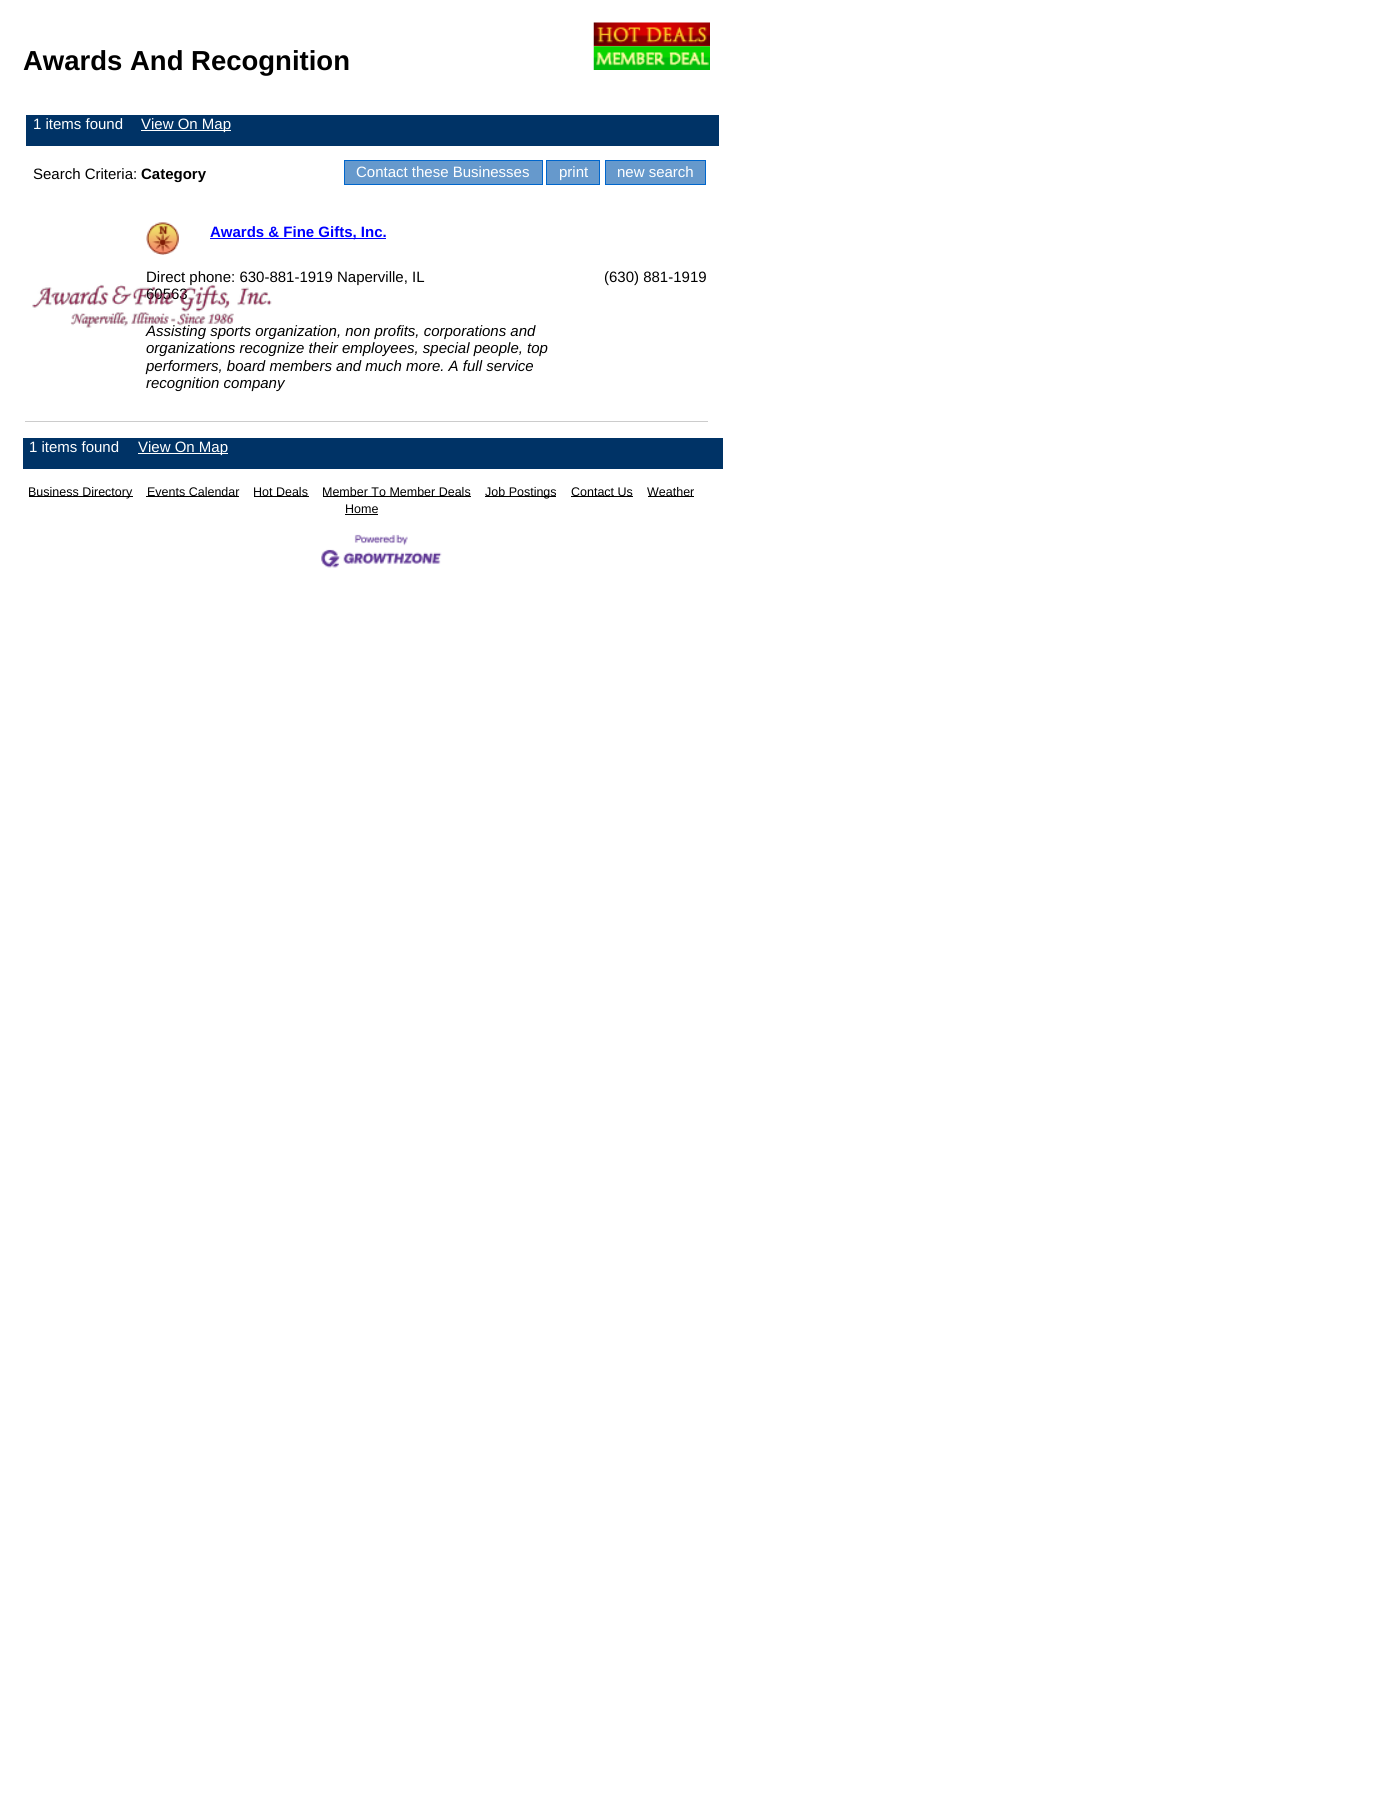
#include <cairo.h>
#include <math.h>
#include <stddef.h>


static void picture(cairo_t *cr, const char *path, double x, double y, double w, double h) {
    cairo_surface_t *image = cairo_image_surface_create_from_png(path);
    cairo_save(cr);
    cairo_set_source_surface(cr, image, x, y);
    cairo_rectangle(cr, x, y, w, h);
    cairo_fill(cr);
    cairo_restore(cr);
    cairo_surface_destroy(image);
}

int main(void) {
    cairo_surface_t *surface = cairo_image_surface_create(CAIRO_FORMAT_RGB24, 1381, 1820);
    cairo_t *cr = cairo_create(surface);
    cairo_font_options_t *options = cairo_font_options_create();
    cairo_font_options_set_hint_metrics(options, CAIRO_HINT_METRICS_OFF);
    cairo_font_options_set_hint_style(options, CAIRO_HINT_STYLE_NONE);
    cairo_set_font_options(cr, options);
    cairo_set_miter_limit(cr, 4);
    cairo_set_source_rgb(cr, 1, 1, 1);
    cairo_paint(cr);
    picture(cr, "img1.png", 593, 22, 117, 25);
    cairo_select_font_face(cr, "Liberation Sans", CAIRO_FONT_SLANT_NORMAL, CAIRO_FONT_WEIGHT_BOLD);
    cairo_set_font_size(cr, 27.5);
    cairo_set_source_rgb(cr, 0, 0, 0);
    cairo_move_to(cr, 23, 70);
    cairo_show_text(cr, "Awards And Recognition");
    picture(cr, "img2.png", 593, 46, 117, 24);
    cairo_set_source_rgb(cr, 0, 0.2, 0.4);
    cairo_rectangle(cr, 26, 115, 693, 31);
    cairo_fill(cr);
    cairo_select_font_face(cr, "Liberation Sans", CAIRO_FONT_SLANT_NORMAL, CAIRO_FONT_WEIGHT_NORMAL);
    cairo_set_font_size(cr, 15);
    cairo_set_source_rgb(cr, 1, 1, 1);
    cairo_move_to(cr, 33, 129);
    cairo_show_text(cr, "1 items found");
    cairo_rectangle(cr, 141, 130, 90, 1);
    cairo_fill(cr);
    cairo_move_to(cr, 141, 129);
    cairo_show_text(cr, "View On Map");
    cairo_set_source_rgb(cr, 0, 0, 0);
    cairo_move_to(cr, 33, 179);
    cairo_show_text(cr, "Search Criteria:");
    cairo_select_font_face(cr, "Liberation Sans", CAIRO_FONT_SLANT_NORMAL, CAIRO_FONT_WEIGHT_BOLD);
    cairo_move_to(cr, 141, 179);
    cairo_show_text(cr, "Category");
    cairo_set_source_rgb(cr, 0.4, 0.6, 0.8);
    cairo_rectangle(cr, 344.5, 160.5, 198, 24);
    cairo_fill_preserve(cr);
    cairo_set_source_rgb(cr, 0, 0.4, 0.8);
    cairo_set_line_width(cr, 1);
    cairo_stroke(cr);
    cairo_select_font_face(cr, "Liberation Sans", CAIRO_FONT_SLANT_NORMAL, CAIRO_FONT_WEIGHT_NORMAL);
    cairo_set_source_rgb(cr, 1, 1, 1);
    cairo_move_to(cr, 356, 177);
    cairo_show_text(cr, "Contact these Businesses");
    cairo_set_source_rgb(cr, 0.4, 0.6, 0.8);
    cairo_rectangle(cr, 546.5, 160.5, 53, 24);
    cairo_fill_preserve(cr);
    cairo_set_source_rgb(cr, 0, 0.4, 0.8);
    cairo_stroke(cr);
    cairo_set_source_rgb(cr, 1, 1, 1);
    cairo_move_to(cr, 559, 177);
    cairo_show_text(cr, "print");
    cairo_set_source_rgb(cr, 0.4, 0.6, 0.8);
    cairo_rectangle(cr, 605.5, 160.5, 100, 24);
    cairo_fill_preserve(cr);
    cairo_set_source_rgb(cr, 0, 0.4, 0.8);
    cairo_stroke(cr);
    cairo_set_source_rgb(cr, 1, 1, 1);
    cairo_move_to(cr, 617, 177);
    cairo_show_text(cr, "new search");
    picture(cr, "img3.png", 146, 222, 33, 33);
    cairo_set_source_rgb(cr, 0, 0, 1);
    cairo_rectangle(cr, 210, 238, 176, 1);
    cairo_fill(cr);
    cairo_select_font_face(cr, "Liberation Sans", CAIRO_FONT_SLANT_NORMAL, CAIRO_FONT_WEIGHT_BOLD);
    cairo_move_to(cr, 210, 237);
    cairo_show_text(cr, "Awards & Fine Gifts, Inc.");
    cairo_select_font_face(cr, "Liberation Sans", CAIRO_FONT_SLANT_NORMAL, CAIRO_FONT_WEIGHT_NORMAL);
    cairo_set_source_rgb(cr, 0, 0, 0);
    cairo_move_to(cr, 146, 282);
    cairo_show_text(cr, "Direct phone: 630-881-1919 Naperville, IL");
    cairo_move_to(cr, 146, 299);
    cairo_show_text(cr, "60563");
    cairo_select_font_face(cr, "Liberation Sans", CAIRO_FONT_SLANT_ITALIC, CAIRO_FONT_WEIGHT_NORMAL);
    cairo_move_to(cr, 146, 336);
    cairo_show_text(cr, "Assisting sports organization, non profits, corporations and");
    cairo_move_to(cr, 146, 353);
    cairo_show_text(cr, "organizations recognize their employees, special people, top");
    cairo_move_to(cr, 146, 371);
    cairo_show_text(cr, "performers, board members and much more. A full service");
    cairo_move_to(cr, 146, 388);
    cairo_show_text(cr, "recognition company");
    cairo_select_font_face(cr, "Liberation Sans", CAIRO_FONT_SLANT_NORMAL, CAIRO_FONT_WEIGHT_NORMAL);
    cairo_move_to(cr, 604, 282);
    cairo_show_text(cr, "(630) 881-1919");
    picture(cr, "img4.png", 32, 284, 240, 44);
    cairo_set_source_rgb(cr, 0.8, 0.8, 0.8);
    cairo_rectangle(cr, 25, 421, 683, 1);
    cairo_fill(cr);
    cairo_set_source_rgb(cr, 0, 0.2, 0.4);
    cairo_rectangle(cr, 23, 438, 700, 31);
    cairo_fill(cr);
    cairo_set_source_rgb(cr, 1, 1, 1);
    cairo_move_to(cr, 29, 452);
    cairo_show_text(cr, "1 items found");
    cairo_rectangle(cr, 138, 453, 90, 1);
    cairo_fill(cr);
    cairo_move_to(cr, 138, 452);
    cairo_show_text(cr, "View On Map");
    cairo_set_source_rgb(cr, 0, 0, 0);
    cairo_rectangle(cr, 29, 496, 104, 1);
    cairo_fill(cr);
    cairo_set_font_size(cr, 12.5);
    cairo_move_to(cr, 28, 496);
    cairo_show_text(cr, "Business Directory");
    cairo_rectangle(cr, 146, 496, 93, 1);
    cairo_fill(cr);
    cairo_move_to(cr, 147, 496);
    cairo_show_text(cr, "Events Calendar");
    cairo_rectangle(cr, 254, 496, 55, 1);
    cairo_fill(cr);
    cairo_move_to(cr, 253, 496);
    cairo_show_text(cr, "Hot Deals");
    cairo_rectangle(cr, 323, 496, 148, 1);
    cairo_fill(cr);
    cairo_move_to(cr, 322, 496);
    cairo_show_text(cr, "Member To Member Deals");
    cairo_rectangle(cr, 485, 496, 71, 1);
    cairo_fill(cr);
    cairo_move_to(cr, 485, 496);
    cairo_show_text(cr, "Job Postings");
    cairo_rectangle(cr, 571, 496, 62, 1);
    cairo_fill(cr);
    cairo_move_to(cr, 571, 496);
    cairo_show_text(cr, "Contact Us");
    cairo_rectangle(cr, 648, 496, 46, 1);
    cairo_fill(cr);
    cairo_move_to(cr, 647, 496);
    cairo_show_text(cr, "Weather");
    cairo_move_to(cr, 345, 513);
    cairo_show_text(cr, "Home");
    cairo_rectangle(cr, 345, 514, 33, 1);
    cairo_fill(cr);
    picture(cr, "img5.png", 321, 534, 121, 34);
    cairo_surface_write_to_png(surface, "page.png");
    cairo_font_options_destroy(options);
    cairo_destroy(cr);
    cairo_surface_destroy(surface);
    return 0;
}
